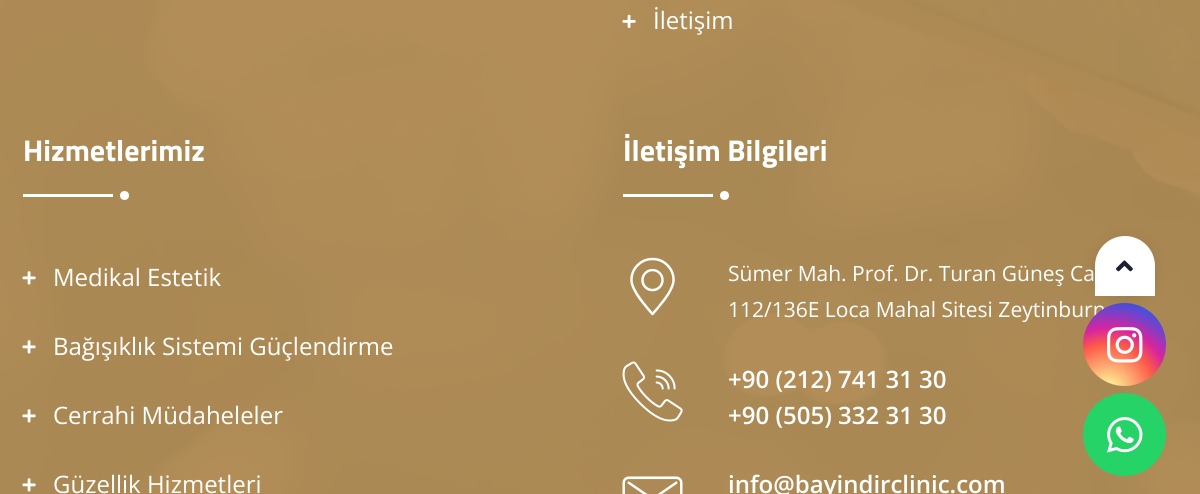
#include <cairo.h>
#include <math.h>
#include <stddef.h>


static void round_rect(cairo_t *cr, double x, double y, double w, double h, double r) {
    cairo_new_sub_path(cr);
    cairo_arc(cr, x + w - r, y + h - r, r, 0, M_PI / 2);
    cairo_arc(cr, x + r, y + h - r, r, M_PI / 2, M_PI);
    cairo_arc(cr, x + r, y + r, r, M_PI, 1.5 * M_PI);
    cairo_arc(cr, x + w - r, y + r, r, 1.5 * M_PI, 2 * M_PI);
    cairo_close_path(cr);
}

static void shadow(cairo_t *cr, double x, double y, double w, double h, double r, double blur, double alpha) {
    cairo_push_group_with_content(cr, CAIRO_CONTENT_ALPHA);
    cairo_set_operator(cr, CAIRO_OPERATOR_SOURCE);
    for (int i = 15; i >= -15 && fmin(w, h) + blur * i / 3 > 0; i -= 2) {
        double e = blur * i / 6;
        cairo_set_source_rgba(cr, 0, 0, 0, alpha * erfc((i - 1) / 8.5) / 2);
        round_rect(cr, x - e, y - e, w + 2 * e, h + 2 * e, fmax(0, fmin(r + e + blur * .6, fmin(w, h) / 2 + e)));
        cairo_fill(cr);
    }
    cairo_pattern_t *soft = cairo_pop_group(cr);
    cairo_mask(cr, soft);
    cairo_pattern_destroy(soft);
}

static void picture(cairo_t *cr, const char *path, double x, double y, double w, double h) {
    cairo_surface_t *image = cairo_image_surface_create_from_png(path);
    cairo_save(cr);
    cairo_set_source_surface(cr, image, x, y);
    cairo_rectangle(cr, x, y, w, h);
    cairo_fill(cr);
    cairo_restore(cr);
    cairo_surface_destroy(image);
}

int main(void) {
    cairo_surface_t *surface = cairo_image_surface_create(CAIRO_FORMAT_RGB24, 1200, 494);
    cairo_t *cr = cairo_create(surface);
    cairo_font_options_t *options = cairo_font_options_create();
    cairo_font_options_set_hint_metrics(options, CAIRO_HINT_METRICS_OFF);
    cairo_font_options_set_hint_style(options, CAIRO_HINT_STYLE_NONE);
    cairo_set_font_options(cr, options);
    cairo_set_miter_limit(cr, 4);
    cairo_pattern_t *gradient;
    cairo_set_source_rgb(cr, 1, 1, 1);
    cairo_paint(cr);
    picture(cr, "img1.png", 0, 0, 1200, 494);
    picture(cr, "img2.png", 622, 14, 14, 14);
    cairo_select_font_face(cr, "Open Sans", CAIRO_FONT_SLANT_NORMAL, CAIRO_FONT_WEIGHT_NORMAL);
    cairo_set_font_size(cr, 24);
    cairo_set_source_rgb(cr, 1, 1, 1);
    cairo_move_to(cr, 653, 29);
    cairo_show_text(cr, "İletişim");
    cairo_select_font_face(cr, "Titillium Web", CAIRO_FONT_SLANT_NORMAL, CAIRO_FONT_WEIGHT_BOLD);
    cairo_set_font_size(cr, 30);
    cairo_move_to(cr, 23, 161);
    cairo_show_text(cr, "Hizmetlerimiz");
    cairo_rectangle(cr, 23, 194, 90, 3);
    cairo_fill(cr);
    cairo_arc(cr, 124.5, 195.5, 4.5, 0, 2 * M_PI);
    cairo_fill(cr);
    picture(cr, "img3.png", 22, 271, 14, 14);
    cairo_select_font_face(cr, "Open Sans", CAIRO_FONT_SLANT_NORMAL, CAIRO_FONT_WEIGHT_NORMAL);
    cairo_set_font_size(cr, 24);
    cairo_move_to(cr, 53, 286);
    cairo_show_text(cr, "Medikal Estetik");
    picture(cr, "img4.png", 22, 340, 14, 14);
    cairo_move_to(cr, 53, 355);
    cairo_show_text(cr, "Bağışıklık Sistemi Güçlendirme");
    picture(cr, "img5.png", 22, 409, 14, 14);
    cairo_move_to(cr, 53, 424);
    cairo_show_text(cr, "Cerrahi Müdaheleler");
    picture(cr, "img6.png", 22, 478, 14, 14);
    cairo_move_to(cr, 53, 493);
    cairo_show_text(cr, "Güzellik Hizmetleri");
    cairo_select_font_face(cr, "Titillium Web", CAIRO_FONT_SLANT_NORMAL, CAIRO_FONT_WEIGHT_BOLD);
    cairo_set_font_size(cr, 30);
    cairo_move_to(cr, 623, 161);
    cairo_show_text(cr, "İletişim Bilgileri");
    cairo_rectangle(cr, 623, 194, 90, 3);
    cairo_fill(cr);
    cairo_arc(cr, 724.5, 195.5, 4.5, 0, 2 * M_PI);
    cairo_fill(cr);
    picture(cr, "img7.png", 630, 257, 45, 59);
    cairo_select_font_face(cr, "Open Sans", CAIRO_FONT_SLANT_NORMAL, CAIRO_FONT_WEIGHT_NORMAL);
    cairo_set_font_size(cr, 21);
    cairo_move_to(cr, 728, 281);
    cairo_show_text(cr, "Sümer Mah. Prof. Dr. Turan Güneş Ca");
    cairo_move_to(cr, 728, 317);
    cairo_show_text(cr, "112/136E Loca Mahal Sitesi Zeytinburn");
    picture(cr, "img8.png", 622, 361, 61, 61);
    cairo_select_font_face(cr, "Open Sans SemiBold", CAIRO_FONT_SLANT_NORMAL, CAIRO_FONT_WEIGHT_NORMAL);
    cairo_set_font_size(cr, 24);
    cairo_move_to(cr, 728, 388);
    cairo_show_text(cr, "+90 (212) 741 31 30");
    cairo_move_to(cr, 728, 424);
    cairo_show_text(cr, "+90 (505) 332 31 30");
    picture(cr, "img9.png", 622, 476, 61, 18);
    cairo_move_to(cr, 728, 493);
    cairo_show_text(cr, "info@bayindirclinic.com");
    gradient = cairo_pattern_create_radial(1108, 391, 0, 1108, 391, 105);
    cairo_pattern_add_color_stop_rgba(gradient, 0, 0.992, 0.957, 0.592, 1);
    cairo_pattern_add_color_stop_rgba(gradient, 0.05, 0.992, 0.957, 0.592, 1);
    cairo_pattern_add_color_stop_rgba(gradient, 0.45, 0.992, 0.349, 0.286, 1);
    cairo_pattern_add_color_stop_rgba(gradient, 0.6, 0.839, 0.141, 0.624, 1);
    cairo_pattern_add_color_stop_rgba(gradient, 0.9, 0.157, 0.353, 0.922, 1);
    cairo_set_source(cr, gradient);
    cairo_pattern_destroy(gradient);
    cairo_new_path(cr);
    cairo_arc(cr, 1124.5, 344.5, 41.5, 0, 2 * M_PI);
    cairo_fill(cr);
    cairo_set_source_rgb(cr, 0, 0, 0);
    shadow(cr, 1095, 240, 60, 60, 30, 7.5, 0.1);
    cairo_set_source_rgb(cr, 1, 1, 1);
    cairo_new_path(cr);
    cairo_move_to(cr, 1125, 236);
    cairo_curve_to(cr, 1141.5, 236, 1155, 249.5, 1155, 266);
    cairo_line_to(cr, 1155, 296);
    cairo_line_to(cr, 1095, 296);
    cairo_line_to(cr, 1095, 266);
    cairo_curve_to(cr, 1095, 249.5, 1108.5, 236, 1125, 236);
    cairo_close_path(cr);
    cairo_fill(cr);
    picture(cr, "img10.png", 1116, 260, 17, 12);
    picture(cr, "img11.png", 1107, 327, 36, 36);
    cairo_set_source_rgb(cr, 0.145, 0.827, 0.4);
    cairo_arc(cr, 1124.5, 434.5, 41.5, 0, 2 * M_PI);
    cairo_fill(cr);
    picture(cr, "img12.png", 1107, 417, 36, 36);
    cairo_surface_write_to_png(surface, "page.png");
    cairo_font_options_destroy(options);
    cairo_destroy(cr);
    cairo_surface_destroy(surface);
    return 0;
}
